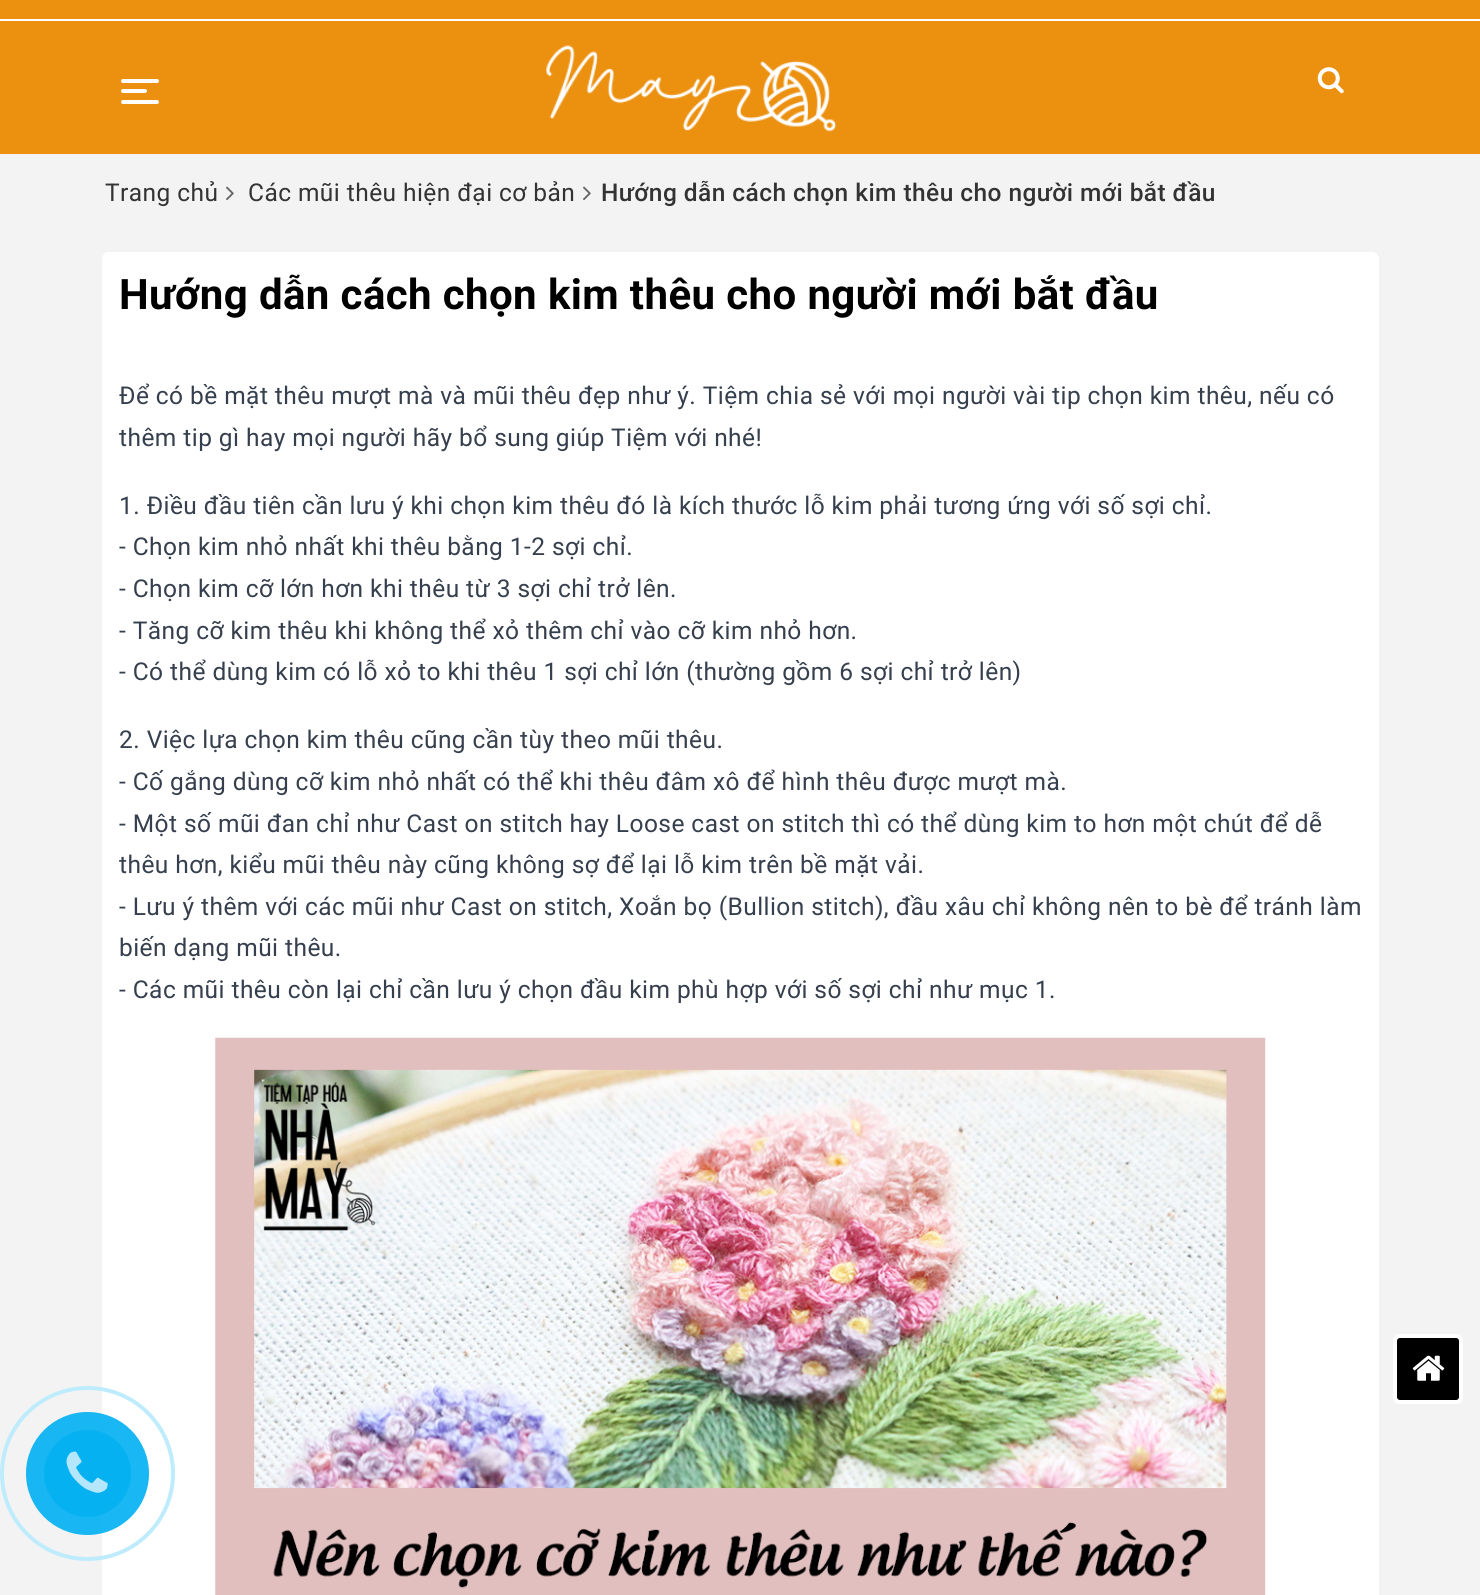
#include <cairo.h>
#include <math.h>
#include <stddef.h>


static void spaced_text(cairo_t *cr, double x, double y, const char *s, double letter, double word) {
    cairo_move_to(cr, x, y);
    while (*s) {
        char ch[5] = {0};
        int n = 0;
        do ch[n++] = *s++; while ((*s & 0xC0) == 0x80);
        cairo_show_text(cr, ch);
        cairo_rel_move_to(cr, letter + word * (*ch == ' '), 0);
    }
}

static void round_rect(cairo_t *cr, double x, double y, double w, double h, double r) {
    cairo_new_sub_path(cr);
    cairo_arc(cr, x + w - r, y + h - r, r, 0, M_PI / 2);
    cairo_arc(cr, x + r, y + h - r, r, M_PI / 2, M_PI);
    cairo_arc(cr, x + r, y + r, r, M_PI, 1.5 * M_PI);
    cairo_arc(cr, x + w - r, y + r, r, 1.5 * M_PI, 2 * M_PI);
    cairo_close_path(cr);
}

static void picture(cairo_t *cr, const char *path, double x, double y, double w, double h) {
    cairo_surface_t *image = cairo_image_surface_create_from_png(path);
    cairo_save(cr);
    cairo_set_source_surface(cr, image, x, y);
    cairo_rectangle(cr, x, y, w, h);
    cairo_fill(cr);
    cairo_restore(cr);
    cairo_surface_destroy(image);
}

int main(void) {
    cairo_surface_t *surface = cairo_image_surface_create(CAIRO_FORMAT_RGB24, 1480, 1595);
    cairo_t *cr = cairo_create(surface);
    cairo_font_options_t *options = cairo_font_options_create();
    cairo_font_options_set_hint_metrics(options, CAIRO_HINT_METRICS_OFF);
    cairo_font_options_set_hint_style(options, CAIRO_HINT_STYLE_NONE);
    cairo_set_font_options(cr, options);
    cairo_set_miter_limit(cr, 4);
    cairo_set_source_rgb(cr, 0.953, 0.953, 0.953);
    cairo_paint(cr);
    cairo_set_source_rgb(cr, 0.922, 0.565, 0.059);
    cairo_rectangle(cr, 0, 0, 1480, 19);
    cairo_fill(cr);
    cairo_set_source_rgb(cr, 1, 1, 1);
    cairo_rectangle(cr, 0, 19, 1480, 2);
    cairo_fill(cr);
    cairo_set_source_rgb(cr, 0.922, 0.565, 0.059);
    cairo_rectangle(cr, 0, 21, 1480, 133);
    cairo_fill(cr);
    cairo_set_source_rgb(cr, 1, 1, 1);
    round_rect(cr, 121, 79, 38, 4, 2);
    cairo_fill(cr);
    round_rect(cr, 121, 89, 26, 4, 2);
    cairo_fill(cr);
    round_rect(cr, 121, 100, 38, 4, 2);
    cairo_fill(cr);
    picture(cr, "img1.png", 546, 45, 291, 87);
    picture(cr, "img2.png", 1317, 67, 27, 27);
    cairo_select_font_face(cr, "Roboto", CAIRO_FONT_SLANT_NORMAL, CAIRO_FONT_WEIGHT_NORMAL);
    cairo_set_font_size(cr, 24.5);
    cairo_set_source_rgb(cr, 0.2, 0.2, 0.2);
    spaced_text(cr, 105, 201, "Trang chủ", 0.44, 0);
    picture(cr, "img3.png", 226, 186, 8, 15);
    spaced_text(cr, 248, 201, "Các mũi thêu hiện đại cơ bản", 0.44, 0);
    picture(cr, "img3.png", 583, 186, 8, 15);
    cairo_select_font_face(cr, "Roboto Medium", CAIRO_FONT_SLANT_NORMAL, CAIRO_FONT_WEIGHT_NORMAL);
    spaced_text(cr, 601, 201, "Hướng dẫn cách chọn kim thêu cho người mới bắt đầu", 0.44, 0);
    cairo_set_source_rgb(cr, 1, 1, 1);
    round_rect(cr, 102, 252, 1277, 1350, 7);
    cairo_fill(cr);
    cairo_select_font_face(cr, "Roboto", CAIRO_FONT_SLANT_NORMAL, CAIRO_FONT_WEIGHT_BOLD);
    cairo_set_font_size(cr, 42);
    cairo_set_source_rgb(cr, 0, 0, 0);
    spaced_text(cr, 119, 309, "Hướng dẫn cách chọn kim thêu cho người mới bắt đầu", 0.4, 0);
    cairo_select_font_face(cr, "Roboto", CAIRO_FONT_SLANT_NORMAL, CAIRO_FONT_WEIGHT_NORMAL);
    cairo_set_font_size(cr, 24.5);
    cairo_set_source_rgb(cr, 0.212, 0.247, 0.302);
    spaced_text(cr, 119, 404, "Để có bề mặt thêu mượt mà và mũi thêu đẹp như ý. Tiệm chia sẻ với mọi người vài tip chọn kim thêu, nếu có", 0.44, 0);
    spaced_text(cr, 119, 446, "thêm tip gì hay mọi người hãy bổ sung giúp Tiệm với nhé!", 0.44, 0);
    spaced_text(cr, 119, 514, "1. Điều đầu tiên cần lưu ý khi chọn kim thêu đó là kích thước lỗ kim phải tương ứng với số sợi chỉ.", 0.44, 0);
    spaced_text(cr, 119, 555, "- Chọn kim nhỏ nhất khi thêu bằng 1-2 sợi chỉ.", 0.44, 0);
    spaced_text(cr, 119, 597, "- Chọn kim cỡ lớn hơn khi thêu từ 3 sợi chỉ trở lên.", 0.44, 0);
    spaced_text(cr, 119, 639, "- Tăng cỡ kim thêu khi không thể xỏ thêm chỉ vào cỡ kim nhỏ hơn.", 0.44, 0);
    spaced_text(cr, 119, 680, "- Có thể dùng kim có lỗ xỏ to khi thêu 1 sợi chỉ lớn (thường gồm 6 sợi chỉ trở lên)", 0.44, 0);
    spaced_text(cr, 119, 748, "2. Việc lựa chọn kim thêu cũng cần tùy theo mũi thêu.", 0.44, 0);
    spaced_text(cr, 119, 790, "- Cố gắng dùng cỡ kim nhỏ nhất có thể khi thêu đâm xô để hình thêu được mượt mà.", 0.44, 0);
    spaced_text(cr, 119, 832, "- Một số mũi đan chỉ như Cast on stitch hay Loose cast on stitch thì có thể dùng kim to hơn một chút để dễ", 0.44, 0);
    spaced_text(cr, 119, 873, "thêu hơn, kiểu mũi thêu này cũng không sợ để lại lỗ kim trên bề mặt vải.", 0.44, 0);
    spaced_text(cr, 119, 915, "- Lưu ý thêm với các mũi như Cast on stitch, Xoắn bọ (Bullion stitch), đầu xâu chỉ không nên to bè để tránh làm", 0.44, 0);
    spaced_text(cr, 119, 956, "biến dạng mũi thêu.", 0.44, 0);
    spaced_text(cr, 119, 998, "- Các mũi thêu còn lại chỉ cần lưu ý chọn đầu kim phù hợp với số sợi chỉ như mục 1.", 0.44, 0);
    picture(cr, "img4.png", 215, 1037, 1051, 558);
    cairo_set_source_rgb(cr, 0, 0, 0);
    round_rect(cr, 1395, 1336, 66, 66, 5);
    cairo_fill_preserve(cr);
    cairo_set_source_rgb(cr, 1, 1, 1);
    cairo_set_line_width(cr, 4);
    cairo_stroke(cr);
    picture(cr, "img5.png", 1412, 1355, 33, 26);
    cairo_arc(cr, 87.5, 1473.5, 85.5, 0, 2 * M_PI);
    cairo_set_source_rgb(cr, 0.749, 0.922, 0.988);
    cairo_stroke(cr);
    cairo_set_source_rgba(cr, 0, 0.686, 0.949, 0.9);
    cairo_arc(cr, 87.5, 1473.5, 61.5, 0, 2 * M_PI);
    cairo_fill(cr);
    cairo_set_source_rgb(cr, 0.027, 0.694, 0.949);
    cairo_arc(cr, 87.5, 1473.5, 43.5, 0, 2 * M_PI);
    cairo_fill(cr);
    picture(cr, "img6.png", 66, 1451, 42, 42);
    cairo_surface_write_to_png(surface, "page.png");
    cairo_font_options_destroy(options);
    cairo_destroy(cr);
    cairo_surface_destroy(surface);
    return 0;
}
